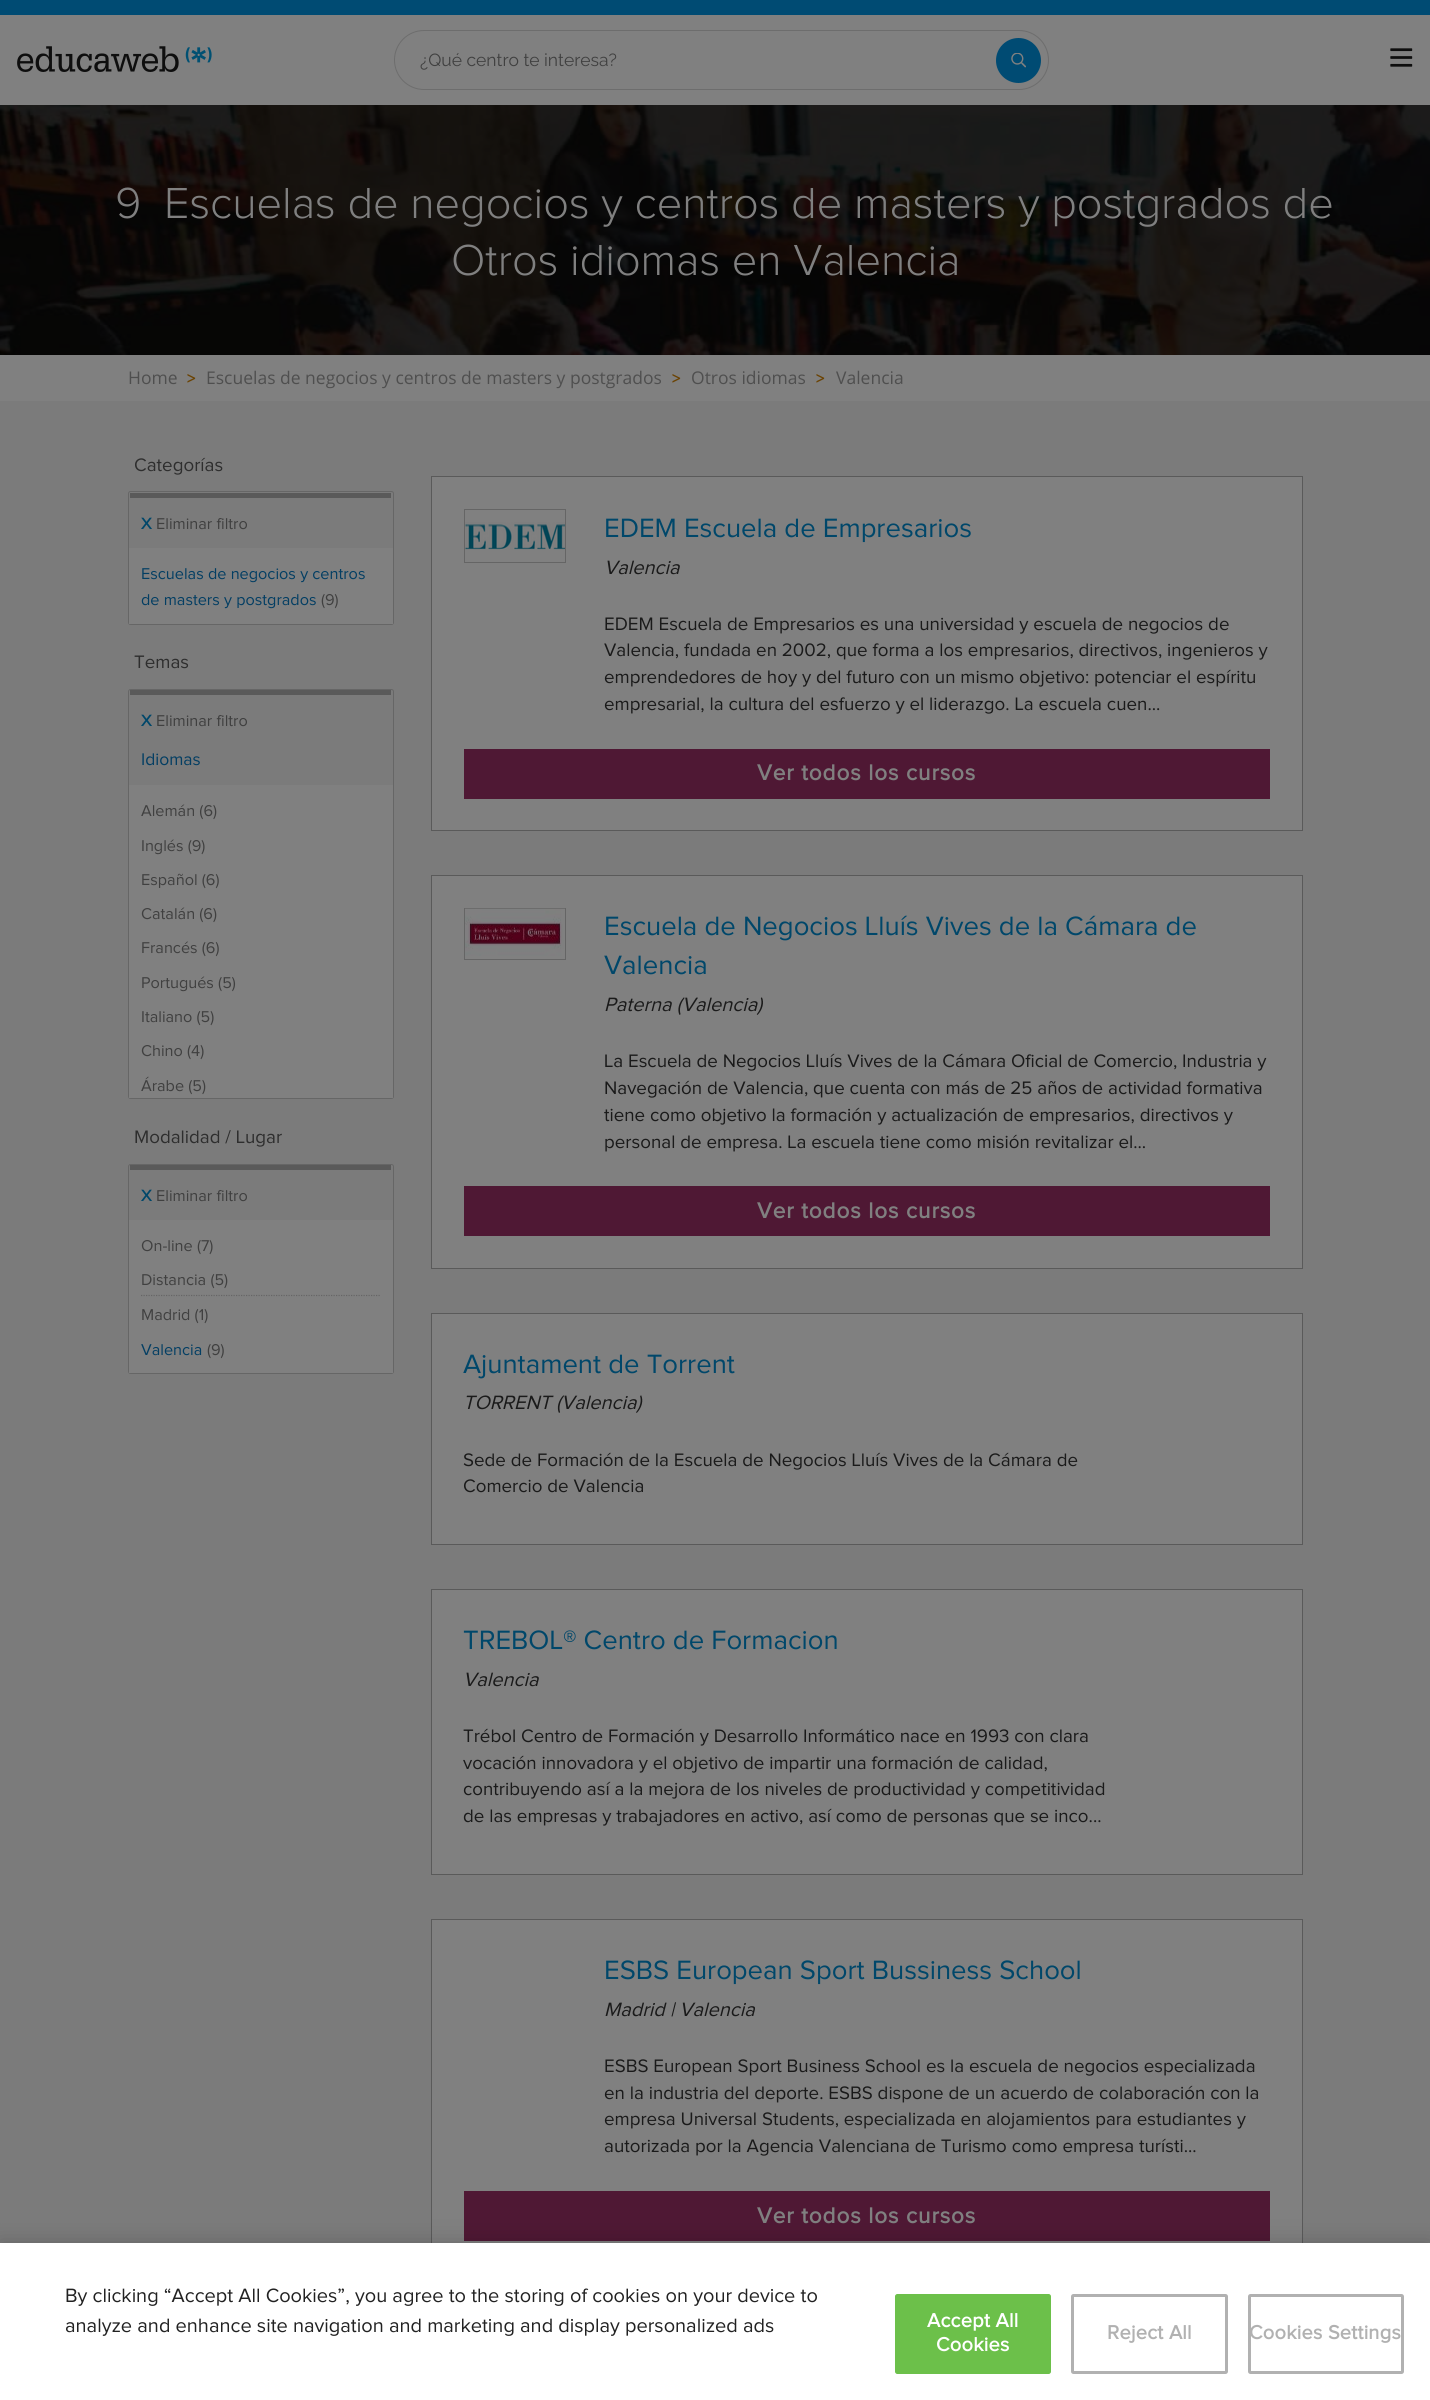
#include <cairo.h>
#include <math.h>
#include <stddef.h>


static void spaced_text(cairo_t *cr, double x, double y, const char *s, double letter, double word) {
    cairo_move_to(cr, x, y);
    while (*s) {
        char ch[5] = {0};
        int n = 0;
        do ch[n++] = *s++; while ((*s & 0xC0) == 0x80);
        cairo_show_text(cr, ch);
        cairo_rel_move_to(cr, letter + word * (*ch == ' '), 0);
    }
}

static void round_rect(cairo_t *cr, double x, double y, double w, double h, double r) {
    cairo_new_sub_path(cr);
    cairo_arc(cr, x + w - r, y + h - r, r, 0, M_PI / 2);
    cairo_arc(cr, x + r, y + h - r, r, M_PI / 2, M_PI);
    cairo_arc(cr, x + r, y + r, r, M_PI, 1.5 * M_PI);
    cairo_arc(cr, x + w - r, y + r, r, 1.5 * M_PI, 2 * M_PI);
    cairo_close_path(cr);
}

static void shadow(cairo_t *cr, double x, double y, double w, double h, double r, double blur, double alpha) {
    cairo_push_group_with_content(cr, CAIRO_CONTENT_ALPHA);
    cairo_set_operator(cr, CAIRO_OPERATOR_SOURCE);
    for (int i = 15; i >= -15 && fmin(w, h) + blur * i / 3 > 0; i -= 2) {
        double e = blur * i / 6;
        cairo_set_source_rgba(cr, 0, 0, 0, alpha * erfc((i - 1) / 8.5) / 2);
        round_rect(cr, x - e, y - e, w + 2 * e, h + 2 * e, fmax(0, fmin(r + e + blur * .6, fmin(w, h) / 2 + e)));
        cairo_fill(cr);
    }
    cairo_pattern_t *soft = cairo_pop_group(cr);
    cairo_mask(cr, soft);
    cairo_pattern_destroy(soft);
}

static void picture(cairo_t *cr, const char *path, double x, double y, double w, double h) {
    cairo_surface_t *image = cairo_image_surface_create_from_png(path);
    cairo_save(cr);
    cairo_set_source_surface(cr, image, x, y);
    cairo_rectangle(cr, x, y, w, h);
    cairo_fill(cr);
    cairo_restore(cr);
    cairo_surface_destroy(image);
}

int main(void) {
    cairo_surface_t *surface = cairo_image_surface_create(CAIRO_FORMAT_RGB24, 1430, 2400);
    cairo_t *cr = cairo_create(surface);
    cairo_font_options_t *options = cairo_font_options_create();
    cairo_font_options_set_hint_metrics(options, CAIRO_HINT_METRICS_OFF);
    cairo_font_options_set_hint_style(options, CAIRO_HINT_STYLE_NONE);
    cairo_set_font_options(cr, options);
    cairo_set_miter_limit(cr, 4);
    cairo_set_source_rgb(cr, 0.482, 0.482, 0.482);
    cairo_paint(cr);
    cairo_set_source_rgb(cr, 0.502, 0.502, 0.502);
    cairo_rectangle(cr, 0, 15, 1430, 90);
    cairo_fill(cr);
    cairo_set_source_rgb(cr, 0, 0.294, 0.451);
    cairo_rectangle(cr, 0, 0, 1430, 15);
    cairo_fill(cr);
    picture(cr, "img1.png", 17, 46, 195, 26);
    round_rect(cr, 394.5, 30.5, 654, 59, 29.5);
    cairo_set_source_rgb(cr, 0.427, 0.427, 0.427);
    cairo_set_line_width(cr, 1);
    cairo_stroke(cr);
    cairo_select_font_face(cr, "Raleway", CAIRO_FONT_SLANT_NORMAL, CAIRO_FONT_WEIGHT_NORMAL);
    cairo_set_font_size(cr, 17.5);
    cairo_set_source_rgb(cr, 0.251, 0.251, 0.251);
    cairo_move_to(cr, 420, 66);
    cairo_show_text(cr, "¿Qué centro te interesa?");
    cairo_set_source_rgb(cr, 0, 0.294, 0.451);
    cairo_new_path(cr);
    cairo_arc(cr, 1018.5, 60.5, 22.5, 0, 2 * M_PI);
    cairo_fill(cr);
    picture(cr, "img2.png", 1011, 53, 15, 15);
    picture(cr, "img3.png", 1390, 48, 23, 19);
    picture(cr, "img4.png", 0, 105, 1430, 250);
    cairo_select_font_face(cr, "Proxima Nova Light", CAIRO_FONT_SLANT_NORMAL, CAIRO_FONT_WEIGHT_NORMAL);
    cairo_set_font_size(cr, 45);
    cairo_set_source_rgb(cr, 0.502, 0.502, 0.502);
    cairo_move_to(cr, 115, 218);
    cairo_show_text(cr, "9");
    cairo_move_to(cr, 164, 218);
    cairo_show_text(cr, "Escuelas de negocios y centros de masters y postgrados de");
    cairo_move_to(cr, 451, 275);
    cairo_show_text(cr, "Otros idiomas en Valencia");
    cairo_rectangle(cr, 0, 355, 1430, 46);
    cairo_fill(cr);
    cairo_select_font_face(cr, "Open Sans", CAIRO_FONT_SLANT_NORMAL, CAIRO_FONT_WEIGHT_NORMAL);
    cairo_set_font_size(cr, 17.5);
    cairo_set_source_rgb(cr, 0.31, 0.31, 0.31);
    cairo_move_to(cr, 128, 384);
    cairo_show_text(cr, "Home");
    cairo_select_font_face(cr, "Proxima Nova", CAIRO_FONT_SLANT_NORMAL, CAIRO_FONT_WEIGHT_BOLD);
    cairo_set_font_size(cr, 16.25);
    cairo_set_source_rgb(cr, 0.42, 0.263, 0.012);
    cairo_move_to(cr, 187, 384);
    cairo_show_text(cr, ">");
    cairo_select_font_face(cr, "Open Sans", CAIRO_FONT_SLANT_NORMAL, CAIRO_FONT_WEIGHT_NORMAL);
    cairo_set_font_size(cr, 17.5);
    cairo_set_source_rgb(cr, 0.31, 0.31, 0.31);
    cairo_move_to(cr, 206, 384);
    cairo_show_text(cr, "Escuelas de negocios y centros de masters y postgrados");
    cairo_select_font_face(cr, "Proxima Nova", CAIRO_FONT_SLANT_NORMAL, CAIRO_FONT_WEIGHT_BOLD);
    cairo_set_font_size(cr, 16.25);
    cairo_set_source_rgb(cr, 0.42, 0.263, 0.012);
    cairo_move_to(cr, 672, 384);
    cairo_show_text(cr, ">");
    cairo_select_font_face(cr, "Open Sans", CAIRO_FONT_SLANT_NORMAL, CAIRO_FONT_WEIGHT_NORMAL);
    cairo_set_font_size(cr, 17.5);
    cairo_set_source_rgb(cr, 0.31, 0.31, 0.31);
    cairo_move_to(cr, 691, 384);
    cairo_show_text(cr, "Otros idiomas");
    cairo_select_font_face(cr, "Proxima Nova", CAIRO_FONT_SLANT_NORMAL, CAIRO_FONT_WEIGHT_BOLD);
    cairo_set_font_size(cr, 16.25);
    cairo_set_source_rgb(cr, 0.42, 0.263, 0.012);
    cairo_move_to(cr, 816, 384);
    cairo_show_text(cr, ">");
    cairo_select_font_face(cr, "Open Sans", CAIRO_FONT_SLANT_NORMAL, CAIRO_FONT_WEIGHT_NORMAL);
    cairo_set_font_size(cr, 17.5);
    cairo_set_source_rgb(cr, 0.31, 0.31, 0.31);
    cairo_move_to(cr, 836, 384);
    cairo_show_text(cr, "Valencia");
    cairo_select_font_face(cr, "Proxima Nova", CAIRO_FONT_SLANT_NORMAL, CAIRO_FONT_WEIGHT_NORMAL);
    cairo_set_font_size(cr, 18.75);
    cairo_set_source_rgb(cr, 0.18, 0.18, 0.18);
    cairo_move_to(cr, 134, 471);
    cairo_show_text(cr, "Categorías");
    round_rect(cr, 128.5, 491.5, 265, 133, 2);
    cairo_set_source_rgb(cr, 0.4, 0.4, 0.4);
    cairo_stroke(cr);
    cairo_set_source_rgb(cr, 0.353, 0.353, 0.353);
    cairo_rectangle(cr, 130, 493, 261, 5);
    cairo_fill(cr);
    cairo_select_font_face(cr, "Proxima Nova", CAIRO_FONT_SLANT_NORMAL, CAIRO_FONT_WEIGHT_BOLD);
    cairo_set_font_size(cr, 16.25);
    cairo_set_source_rgb(cr, 0, 0.278, 0.416);
    cairo_move_to(cr, 141, 529);
    cairo_show_text(cr, "X");
    cairo_select_font_face(cr, "Proxima Nova", CAIRO_FONT_SLANT_NORMAL, CAIRO_FONT_WEIGHT_NORMAL);
    cairo_set_source_rgb(cr, 0.251, 0.251, 0.251);
    cairo_move_to(cr, 156, 529);
    cairo_show_text(cr, "Eliminar filtro");
    cairo_set_source_rgb(cr, 0.502, 0.502, 0.502);
    cairo_rectangle(cr, 129, 548, 264, 76);
    cairo_fill(cr);
    cairo_set_source_rgb(cr, 0.012, 0.243, 0.388);
    cairo_move_to(cr, 141, 579);
    cairo_show_text(cr, "Escuelas de negocios y centros");
    cairo_move_to(cr, 141, 605);
    cairo_show_text(cr, "de masters y postgrados");
    cairo_set_source_rgb(cr, 0.251, 0.251, 0.251);
    cairo_move_to(cr, 321, 605);
    cairo_show_text(cr, "(9)");
    cairo_set_font_size(cr, 18.75);
    cairo_set_source_rgb(cr, 0.18, 0.18, 0.18);
    cairo_move_to(cr, 134, 668);
    cairo_show_text(cr, "Temas");
    round_rect(cr, 128.5, 689.5, 265, 409, 2);
    cairo_set_source_rgb(cr, 0.4, 0.4, 0.4);
    cairo_stroke(cr);
    cairo_set_source_rgb(cr, 0.353, 0.353, 0.353);
    cairo_rectangle(cr, 130, 690, 261, 5);
    cairo_fill(cr);
    cairo_select_font_face(cr, "Proxima Nova", CAIRO_FONT_SLANT_NORMAL, CAIRO_FONT_WEIGHT_BOLD);
    cairo_set_font_size(cr, 16.25);
    cairo_set_source_rgb(cr, 0, 0.278, 0.416);
    cairo_move_to(cr, 141, 726);
    cairo_show_text(cr, "X");
    cairo_select_font_face(cr, "Proxima Nova", CAIRO_FONT_SLANT_NORMAL, CAIRO_FONT_WEIGHT_NORMAL);
    cairo_set_source_rgb(cr, 0.251, 0.251, 0.251);
    cairo_move_to(cr, 156, 726);
    cairo_show_text(cr, "Eliminar filtro");
    cairo_set_font_size(cr, 17.5);
    cairo_set_source_rgb(cr, 0.012, 0.243, 0.388);
    cairo_move_to(cr, 141, 765);
    cairo_show_text(cr, "Idiomas");
    cairo_set_source_rgb(cr, 0.502, 0.502, 0.502);
    cairo_rectangle(cr, 129, 785, 264, 313);
    cairo_fill(cr);
    cairo_set_font_size(cr, 16.25);
    cairo_set_source_rgb(cr, 0.251, 0.251, 0.251);
    cairo_move_to(cr, 141, 816);
    cairo_show_text(cr, "Alemán (6)");
    cairo_move_to(cr, 141, 851);
    cairo_show_text(cr, "Inglés (9)");
    cairo_move_to(cr, 141, 885);
    cairo_show_text(cr, "Español (6)");
    cairo_move_to(cr, 141, 919);
    cairo_show_text(cr, "Catalán (6)");
    cairo_move_to(cr, 141, 953);
    cairo_show_text(cr, "Francés (6)");
    cairo_move_to(cr, 141, 988);
    cairo_show_text(cr, "Portugués (5)");
    cairo_move_to(cr, 141, 1022);
    cairo_show_text(cr, "Italiano (5)");
    cairo_move_to(cr, 141, 1056);
    cairo_show_text(cr, "Chino (4)");
    cairo_move_to(cr, 141, 1091);
    cairo_show_text(cr, "Árabe (5)");
    cairo_set_font_size(cr, 18.75);
    cairo_set_source_rgb(cr, 0.18, 0.18, 0.18);
    cairo_move_to(cr, 134, 1143);
    cairo_show_text(cr, "Modalidad / Lugar");
    round_rect(cr, 128.5, 1164.5, 265, 209, 2);
    cairo_set_source_rgb(cr, 0.4, 0.4, 0.4);
    cairo_stroke(cr);
    cairo_set_source_rgb(cr, 0.353, 0.353, 0.353);
    cairo_rectangle(cr, 130, 1165, 261, 5);
    cairo_fill(cr);
    cairo_select_font_face(cr, "Proxima Nova", CAIRO_FONT_SLANT_NORMAL, CAIRO_FONT_WEIGHT_BOLD);
    cairo_set_font_size(cr, 16.25);
    cairo_set_source_rgb(cr, 0, 0.278, 0.416);
    cairo_move_to(cr, 141, 1201);
    cairo_show_text(cr, "X");
    cairo_select_font_face(cr, "Proxima Nova", CAIRO_FONT_SLANT_NORMAL, CAIRO_FONT_WEIGHT_NORMAL);
    cairo_set_source_rgb(cr, 0.251, 0.251, 0.251);
    cairo_move_to(cr, 156, 1201);
    cairo_show_text(cr, "Eliminar filtro");
    cairo_set_source_rgb(cr, 0.502, 0.502, 0.502);
    cairo_rectangle(cr, 129, 1220, 264, 153);
    cairo_fill(cr);
    cairo_set_source_rgb(cr, 0.251, 0.251, 0.251);
    cairo_move_to(cr, 141, 1251);
    cairo_show_text(cr, "On-line (7)");
    cairo_move_to(cr, 141, 1285);
    cairo_show_text(cr, "Distancia (5)");
    cairo_new_path(cr);
    cairo_move_to(cr, 141, 1295.5);
    cairo_line_to(cr, 380, 1295.5);
    cairo_set_source_rgb(cr, 0.396, 0.396, 0.396);
    cairo_set_line_width(cr, 1.2);
    cairo_set_dash(cr, (double[]){1.25, 1.25}, 2, 0);
    cairo_stroke(cr);
    cairo_set_source_rgb(cr, 0.251, 0.251, 0.251);
    cairo_move_to(cr, 141, 1320);
    cairo_show_text(cr, "Madrid (1)");
    cairo_set_source_rgb(cr, 0.012, 0.243, 0.388);
    cairo_move_to(cr, 141, 1355);
    cairo_show_text(cr, "Valencia");
    cairo_set_source_rgb(cr, 0.251, 0.251, 0.251);
    cairo_move_to(cr, 207, 1355);
    cairo_show_text(cr, "(9)");
    cairo_set_source_rgb(cr, 0.502, 0.502, 0.502);
    cairo_rectangle(cr, 431.5, 476.5, 871, 354);
    cairo_fill_preserve(cr);
    cairo_set_source_rgb(cr, 0.353, 0.353, 0.353);
    cairo_set_line_width(cr, 1);
    cairo_set_dash(cr, NULL, 0, 0);
    cairo_stroke(cr);
    cairo_rectangle(cr, 464.5, 509.5, 101, 53);
    cairo_set_source_rgb(cr, 0.396, 0.396, 0.396);
    cairo_stroke(cr);
    picture(cr, "img5.png", 465, 522, 100, 28);
    cairo_set_font_size(cr, 27.5);
    cairo_set_source_rgb(cr, 0, 0.278, 0.416);
    cairo_move_to(cr, 604, 537);
    cairo_show_text(cr, "EDEM Escuela de Empresarios");
    cairo_select_font_face(cr, "Proxima Nova", CAIRO_FONT_SLANT_ITALIC, CAIRO_FONT_WEIGHT_NORMAL);
    cairo_set_font_size(cr, 20);
    cairo_set_source_rgb(cr, 0.102, 0.102, 0.102);
    cairo_move_to(cr, 604, 574);
    cairo_show_text(cr, "Valencia");
    cairo_select_font_face(cr, "Proxima Nova", CAIRO_FONT_SLANT_NORMAL, CAIRO_FONT_WEIGHT_NORMAL);
    cairo_set_font_size(cr, 18.75);
    cairo_move_to(cr, 604, 630);
    cairo_show_text(cr, "EDEM Escuela de Empresarios es una universidad y escuela de negocios de");
    cairo_move_to(cr, 604, 656);
    cairo_show_text(cr, "Valencia, fundada en 2002, que forma a los empresarios, directivos, ingenieros y");
    cairo_move_to(cr, 604, 683);
    cairo_show_text(cr, "emprendedores de hoy y del futuro con un mismo objetivo: potenciar el espíritu");
    cairo_move_to(cr, 604, 710);
    cairo_show_text(cr, "empresarial, la cultura del esfuerzo y el liderazgo. La escuela cuen...");
    cairo_set_source_rgb(cr, 0.31, 0.094, 0.204);
    cairo_rectangle(cr, 464, 749, 806, 50);
    cairo_fill(cr);
    cairo_select_font_face(cr, "Proxima Nova", CAIRO_FONT_SLANT_NORMAL, CAIRO_FONT_WEIGHT_BOLD);
    cairo_set_font_size(cr, 22.5);
    cairo_set_source_rgb(cr, 0.502, 0.502, 0.502);
    spaced_text(cr, 757, 780, "Ver todos los cursos", 0.9, 0);
    cairo_rectangle(cr, 431.5, 875.5, 871, 393);
    cairo_fill_preserve(cr);
    cairo_set_source_rgb(cr, 0.353, 0.353, 0.353);
    cairo_stroke(cr);
    cairo_rectangle(cr, 464.5, 908.5, 101, 51);
    cairo_set_source_rgb(cr, 0.396, 0.396, 0.396);
    cairo_stroke(cr);
    picture(cr, "img6.png", 465, 908, 100, 48);
    cairo_select_font_face(cr, "Proxima Nova", CAIRO_FONT_SLANT_NORMAL, CAIRO_FONT_WEIGHT_NORMAL);
    cairo_set_font_size(cr, 27.5);
    cairo_set_source_rgb(cr, 0, 0.278, 0.416);
    cairo_move_to(cr, 604, 935);
    cairo_show_text(cr, "Escuela de Negocios Lluís Vives de la Cámara de");
    cairo_move_to(cr, 604, 974);
    cairo_show_text(cr, "Valencia");
    cairo_select_font_face(cr, "Proxima Nova", CAIRO_FONT_SLANT_ITALIC, CAIRO_FONT_WEIGHT_NORMAL);
    cairo_set_font_size(cr, 20);
    cairo_set_source_rgb(cr, 0.102, 0.102, 0.102);
    cairo_move_to(cr, 604, 1011);
    cairo_show_text(cr, "Paterna (Valencia)");
    cairo_select_font_face(cr, "Proxima Nova", CAIRO_FONT_SLANT_NORMAL, CAIRO_FONT_WEIGHT_NORMAL);
    cairo_set_font_size(cr, 18.75);
    cairo_move_to(cr, 604, 1067);
    cairo_show_text(cr, "La Escuela de Negocios Lluís Vives de la Cámara Oficial de Comercio, Industria y");
    cairo_move_to(cr, 604, 1094);
    cairo_show_text(cr, "Navegación de Valencia, que cuenta con más de 25 años de actividad formativa");
    cairo_move_to(cr, 604, 1121);
    cairo_show_text(cr, "tiene como objetivo la formación y actualización de empresarios, directivos y");
    cairo_move_to(cr, 604, 1148);
    cairo_show_text(cr, "personal de empresa. La escuela tiene como misión revitalizar el...");
    cairo_set_source_rgb(cr, 0.31, 0.094, 0.204);
    cairo_rectangle(cr, 464, 1186, 806, 50);
    cairo_fill(cr);
    cairo_select_font_face(cr, "Proxima Nova", CAIRO_FONT_SLANT_NORMAL, CAIRO_FONT_WEIGHT_BOLD);
    cairo_set_font_size(cr, 22.5);
    cairo_set_source_rgb(cr, 0.502, 0.502, 0.502);
    spaced_text(cr, 757, 1218, "Ver todos los cursos", 0.9, 0);
    cairo_rectangle(cr, 431.5, 1313.5, 871, 231);
    cairo_fill_preserve(cr);
    cairo_set_source_rgb(cr, 0.353, 0.353, 0.353);
    cairo_stroke(cr);
    cairo_select_font_face(cr, "Proxima Nova", CAIRO_FONT_SLANT_NORMAL, CAIRO_FONT_WEIGHT_NORMAL);
    cairo_set_font_size(cr, 27.5);
    cairo_set_source_rgb(cr, 0, 0.278, 0.416);
    cairo_move_to(cr, 463, 1373);
    cairo_show_text(cr, "Ajuntament de Torrent");
    cairo_select_font_face(cr, "Proxima Nova", CAIRO_FONT_SLANT_ITALIC, CAIRO_FONT_WEIGHT_NORMAL);
    cairo_set_font_size(cr, 20);
    cairo_set_source_rgb(cr, 0.102, 0.102, 0.102);
    cairo_move_to(cr, 463, 1409);
    cairo_show_text(cr, "TORRENT (Valencia)");
    cairo_select_font_face(cr, "Proxima Nova", CAIRO_FONT_SLANT_NORMAL, CAIRO_FONT_WEIGHT_NORMAL);
    cairo_set_font_size(cr, 18.75);
    cairo_move_to(cr, 463, 1466);
    cairo_show_text(cr, "Sede de Formación de la Escuela de Negocios Lluís Vives de la Cámara de");
    cairo_move_to(cr, 463, 1492);
    cairo_show_text(cr, "Comercio de Valencia");
    cairo_set_source_rgb(cr, 0.502, 0.502, 0.502);
    cairo_rectangle(cr, 431.5, 1589.5, 871, 285);
    cairo_fill_preserve(cr);
    cairo_set_source_rgb(cr, 0.353, 0.353, 0.353);
    cairo_stroke(cr);
    cairo_set_font_size(cr, 27.5);
    cairo_set_source_rgb(cr, 0, 0.278, 0.416);
    cairo_move_to(cr, 463, 1649);
    cairo_show_text(cr, "TREBOL® Centro de Formacion");
    cairo_select_font_face(cr, "Proxima Nova", CAIRO_FONT_SLANT_ITALIC, CAIRO_FONT_WEIGHT_NORMAL);
    cairo_set_font_size(cr, 20);
    cairo_set_source_rgb(cr, 0.102, 0.102, 0.102);
    cairo_move_to(cr, 463, 1686);
    cairo_show_text(cr, "Valencia");
    cairo_select_font_face(cr, "Proxima Nova", CAIRO_FONT_SLANT_NORMAL, CAIRO_FONT_WEIGHT_NORMAL);
    cairo_set_font_size(cr, 18.75);
    cairo_move_to(cr, 463, 1742);
    cairo_show_text(cr, "Trébol Centro de Formación y Desarrollo Informático nace en 1993 con clara");
    cairo_move_to(cr, 463, 1769);
    cairo_show_text(cr, "vocación innovadora y el objetivo de impartir una formación de calidad,");
    cairo_move_to(cr, 463, 1795);
    cairo_show_text(cr, "contribuyendo así a la mejora de los niveles de productividad y competitividad");
    cairo_move_to(cr, 463, 1822);
    cairo_show_text(cr, "de las empresas y trabajadores en activo, así como de personas que se inco...");
    cairo_set_source_rgb(cr, 0.502, 0.502, 0.502);
    cairo_rectangle(cr, 432, 1920, 870, 323);
    cairo_fill(cr);
    cairo_rectangle(cr, 431.5, 1919.5, 871, 354);
    cairo_set_source_rgb(cr, 0.353, 0.353, 0.353);
    cairo_stroke(cr);
    cairo_set_font_size(cr, 27.5);
    cairo_set_source_rgb(cr, 0, 0.278, 0.416);
    cairo_move_to(cr, 604, 1979);
    cairo_show_text(cr, "ESBS European Sport Bussiness School");
    cairo_select_font_face(cr, "Proxima Nova", CAIRO_FONT_SLANT_ITALIC, CAIRO_FONT_WEIGHT_NORMAL);
    cairo_set_font_size(cr, 20);
    cairo_set_source_rgb(cr, 0.102, 0.102, 0.102);
    cairo_move_to(cr, 604, 2016);
    cairo_show_text(cr, "Madrid | Valencia");
    cairo_select_font_face(cr, "Proxima Nova", CAIRO_FONT_SLANT_NORMAL, CAIRO_FONT_WEIGHT_NORMAL);
    cairo_set_font_size(cr, 18.75);
    cairo_move_to(cr, 604, 2072);
    cairo_show_text(cr, "ESBS European Sport Business School es la escuela de negocios especializada");
    cairo_move_to(cr, 604, 2099);
    cairo_show_text(cr, "en la industria del deporte. ESBS dispone de un acuerdo de colaboración con la");
    cairo_move_to(cr, 604, 2125);
    cairo_show_text(cr, "empresa Universal Students, especializada en alojamientos para estudiantes y");
    cairo_move_to(cr, 604, 2152);
    cairo_show_text(cr, "autorizada por la Agencia Valenciana de Turismo como empresa turísti...");
    cairo_set_source_rgb(cr, 0.31, 0.094, 0.204);
    cairo_rectangle(cr, 464, 2191, 806, 50);
    cairo_fill(cr);
    cairo_select_font_face(cr, "Proxima Nova", CAIRO_FONT_SLANT_NORMAL, CAIRO_FONT_WEIGHT_BOLD);
    cairo_set_font_size(cr, 22.5);
    cairo_set_source_rgb(cr, 0.502, 0.502, 0.502);
    spaced_text(cr, 757, 2223, "Ver todos los cursos", 0.9, 0);
    cairo_set_source_rgb(cr, 0, 0, 0);
    shadow(cr, 0, 2243, 1430, 157, 0, 11, 0.2);
    cairo_set_source_rgb(cr, 1, 1, 1);
    cairo_rectangle(cr, 0, 2243, 1430, 157);
    cairo_fill(cr);
    cairo_select_font_face(cr, "Proxima Nova", CAIRO_FONT_SLANT_NORMAL, CAIRO_FONT_WEIGHT_NORMAL);
    cairo_set_font_size(cr, 20);
    cairo_set_source_rgb(cr, 0.133, 0.133, 0.133);
    cairo_move_to(cr, 65, 2302);
    cairo_show_text(cr, "By clicking “Accept All Cookies”, you agree to the storing of cookies on your device to");
    cairo_move_to(cr, 65, 2332);
    cairo_show_text(cr, "analyze and enhance site navigation and marketing and display personalized ads");
    cairo_set_source_rgb(cr, 0.424, 0.753, 0.29);
    round_rect(cr, 895.5, 2294.5, 155, 79, 2);
    cairo_fill_preserve(cr);
    cairo_stroke(cr);
    cairo_select_font_face(cr, "Proxima Nova", CAIRO_FONT_SLANT_NORMAL, CAIRO_FONT_WEIGHT_BOLD);
    cairo_set_source_rgb(cr, 1, 1, 1);
    spaced_text(cr, 927, 2327, "Accept All", 0.25, 0);
    spaced_text(cr, 936, 2351, "Cookies", 0.25, 0);
    round_rect(cr, 1072.5, 2295.5, 154, 77, 1);
    cairo_set_source_rgb(cr, 0.694, 0.694, 0.694);
    cairo_set_line_width(cr, 3);
    cairo_stroke(cr);
    spaced_text(cr, 1107, 2339, "Reject All", 0.25, 0);
    round_rect(cr, 1249.5, 2295.5, 153, 77, 1);
    cairo_stroke(cr);
    spaced_text(cr, 1249, 2339, "Cookies Settings", 0.25, 0);
    cairo_surface_write_to_png(surface, "page.png");
    cairo_font_options_destroy(options);
    cairo_destroy(cr);
    cairo_surface_destroy(surface);
    return 0;
}
